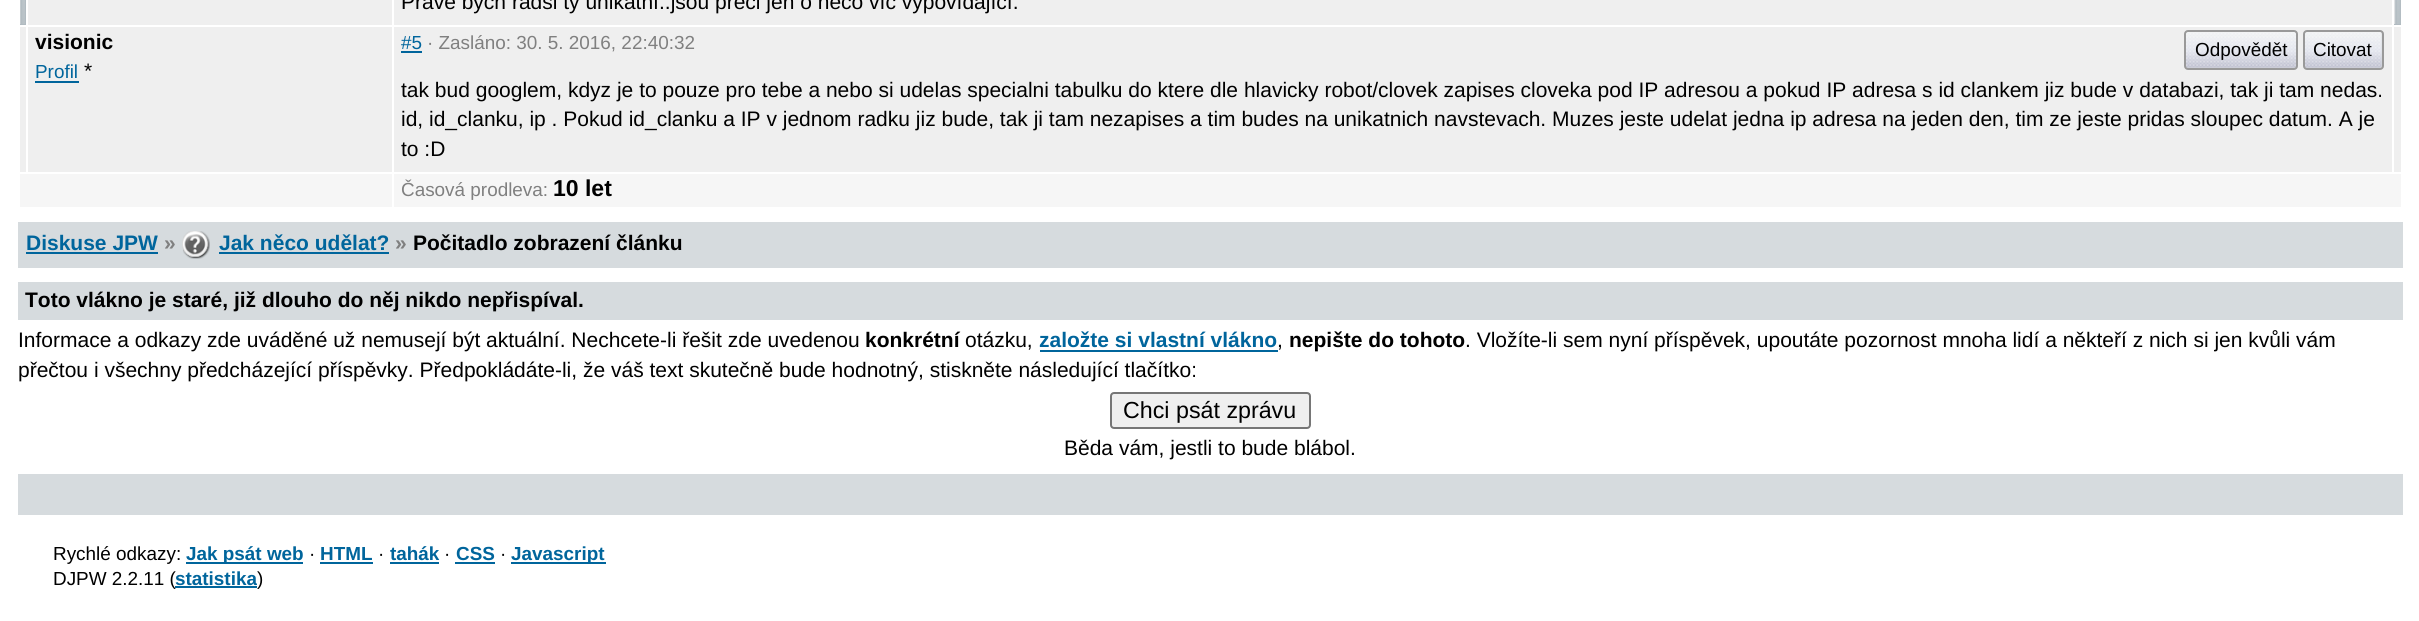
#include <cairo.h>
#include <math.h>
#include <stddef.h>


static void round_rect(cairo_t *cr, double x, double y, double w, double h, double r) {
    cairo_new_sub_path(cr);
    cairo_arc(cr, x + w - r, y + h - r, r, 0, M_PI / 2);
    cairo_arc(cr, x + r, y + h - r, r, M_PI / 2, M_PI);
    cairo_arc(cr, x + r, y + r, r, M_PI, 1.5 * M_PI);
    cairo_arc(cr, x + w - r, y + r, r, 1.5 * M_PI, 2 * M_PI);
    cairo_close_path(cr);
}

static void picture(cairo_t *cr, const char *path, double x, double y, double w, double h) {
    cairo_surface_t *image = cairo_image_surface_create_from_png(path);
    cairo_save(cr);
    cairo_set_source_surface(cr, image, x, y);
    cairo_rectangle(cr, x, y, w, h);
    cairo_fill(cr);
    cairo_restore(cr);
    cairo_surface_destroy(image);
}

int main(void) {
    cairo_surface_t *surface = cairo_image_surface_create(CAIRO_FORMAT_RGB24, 2419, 621);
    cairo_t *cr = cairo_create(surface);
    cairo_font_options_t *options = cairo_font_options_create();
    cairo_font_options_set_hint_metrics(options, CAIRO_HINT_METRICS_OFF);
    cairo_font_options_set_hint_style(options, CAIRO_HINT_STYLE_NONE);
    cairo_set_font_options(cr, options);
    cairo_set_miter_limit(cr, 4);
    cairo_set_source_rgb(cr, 1, 1, 1);
    cairo_paint(cr);
    cairo_set_source_rgb(cr, 0.937, 0.937, 0.937);
    cairo_rectangle(cr, 28, 0, 2364, 25);
    cairo_fill(cr);
    cairo_set_source_rgb(cr, 0.694, 0.733, 0.757);
    cairo_rectangle(cr, 20, 0, 6, 25);
    cairo_fill(cr);
    picture(cr, "img1.png", 20, 0, 5, 24);
    cairo_select_font_face(cr, "Liberation Sans", CAIRO_FONT_SLANT_NORMAL, CAIRO_FONT_WEIGHT_NORMAL);
    cairo_set_font_size(cr, 21);
    cairo_set_source_rgb(cr, 0, 0, 0);
    cairo_move_to(cr, 401, 9);
    cairo_show_text(cr, "Právě bych radši ty unikátní..jsou přeci jen o něco víc vypovídající.");
    cairo_set_source_rgb(cr, 0.694, 0.733, 0.757);
    cairo_rectangle(cr, 2394, 24, 7, 1);
    cairo_fill(cr);
    picture(cr, "img2.png", 2394, 0, 7, 24);
    cairo_set_source_rgb(cr, 0.937, 0.937, 0.937);
    cairo_rectangle(cr, 20, 27, 2381, 145);
    cairo_fill(cr);
    cairo_set_source_rgb(cr, 1, 1, 1);
    cairo_rectangle(cr, 26, 25, 2, 148);
    cairo_fill(cr);
    cairo_select_font_face(cr, "Liberation Sans", CAIRO_FONT_SLANT_NORMAL, CAIRO_FONT_WEIGHT_BOLD);
    cairo_set_source_rgb(cr, 0, 0, 0);
    cairo_move_to(cr, 35, 49);
    cairo_show_text(cr, "visionic");
    cairo_select_font_face(cr, "Liberation Sans", CAIRO_FONT_SLANT_NORMAL, CAIRO_FONT_WEIGHT_NORMAL);
    cairo_set_font_size(cr, 18.9);
    cairo_set_source_rgb(cr, 0, 0.396, 0.612);
    cairo_move_to(cr, 35, 78);
    cairo_show_text(cr, "Profil");
    cairo_rectangle(cr, 35, 81, 44, 2);
    cairo_fill(cr);
    cairo_set_font_size(cr, 21);
    cairo_set_source_rgb(cr, 0, 0, 0);
    cairo_move_to(cr, 84, 78);
    cairo_show_text(cr, "*");
    cairo_set_source_rgb(cr, 1, 1, 1);
    cairo_rectangle(cr, 392, 0, 2, 173);
    cairo_fill(cr);
    cairo_set_font_size(cr, 18.9);
    cairo_set_source_rgb(cr, 0, 0.396, 0.612);
    cairo_move_to(cr, 401, 49);
    cairo_show_text(cr, "#5");
    cairo_rectangle(cr, 401, 51, 21, 2);
    cairo_fill(cr);
    cairo_set_source_rgb(cr, 0.502, 0.502, 0.502);
    cairo_move_to(cr, 427, 49);
    cairo_show_text(cr, "· Zasláno: 30. 5. 2016, 22:40:32");
    cairo_set_source_rgb(cr, 0.839, 0.859, 0.871);
    round_rect(cr, 2186, 32, 110, 36, 2);
    cairo_fill(cr);
    picture(cr, "img3.png", 2186, 32, 110, 36);
    round_rect(cr, 2185, 31, 112, 38, 3);
    cairo_set_source_rgb(cr, 0.6, 0.6, 0.6);
    cairo_stroke(cr);
    cairo_set_source_rgb(cr, 0, 0, 0);
    cairo_move_to(cr, 2195, 56);
    cairo_show_text(cr, "Odpovědět");
    cairo_set_source_rgb(cr, 0.839, 0.859, 0.871);
    round_rect(cr, 2305, 32, 77, 36, 2);
    cairo_fill(cr);
    picture(cr, "img4.png", 2305, 32, 77, 36);
    round_rect(cr, 2304, 31, 79, 38, 3);
    cairo_set_source_rgb(cr, 0.6, 0.6, 0.6);
    cairo_stroke(cr);
    cairo_set_source_rgb(cr, 0, 0, 0);
    cairo_move_to(cr, 2313, 56);
    cairo_show_text(cr, "Citovat");
    cairo_set_font_size(cr, 21);
    cairo_move_to(cr, 401, 97);
    cairo_show_text(cr, "tak bud googlem, kdyz je to pouze pro tebe a nebo si udelas specialni tabulku do ktere dle hlavicky robot/clovek zapises cloveka pod IP adresou a pokud IP adresa s id clankem jiz bude v databazi, tak ji tam nedas.");
    cairo_move_to(cr, 401, 126);
    cairo_show_text(cr, "id, id_clanku, ip . Pokud id_clanku a IP v jednom radku jiz bude, tak ji tam nezapises a tim budes na unikatnich navstevach. Muzes jeste udelat jedna ip adresa na jeden den, tim ze jeste pridas sloupec datum. A je");
    cairo_move_to(cr, 401, 156);
    cairo_show_text(cr, "to :D");
    cairo_set_source_rgb(cr, 1, 1, 1);
    cairo_rectangle(cr, 2392, 25, 2, 148);
    cairo_fill(cr);
    cairo_set_source_rgb(cr, 0.961, 0.961, 0.961);
    cairo_rectangle(cr, 20, 174, 372, 33);
    cairo_fill(cr);
    cairo_rectangle(cr, 394, 174, 2007, 33);
    cairo_fill(cr);
    cairo_set_font_size(cr, 18.9);
    cairo_set_source_rgb(cr, 0.502, 0.502, 0.502);
    cairo_move_to(cr, 401, 196);
    cairo_show_text(cr, "Časová prodleva:");
    cairo_select_font_face(cr, "Liberation Sans", CAIRO_FONT_SLANT_NORMAL, CAIRO_FONT_WEIGHT_BOLD);
    cairo_set_font_size(cr, 23);
    cairo_set_source_rgb(cr, 0, 0, 0);
    cairo_move_to(cr, 553, 196);
    cairo_show_text(cr, "10 let");
    cairo_set_source_rgb(cr, 0.839, 0.859, 0.871);
    cairo_rectangle(cr, 18, 222, 2385, 46);
    cairo_fill(cr);
    cairo_set_font_size(cr, 21);
    cairo_set_source_rgb(cr, 0, 0.396, 0.612);
    cairo_move_to(cr, 26, 250);
    cairo_show_text(cr, "Diskuse JPW");
    cairo_rectangle(cr, 26, 252, 132, 2);
    cairo_fill(cr);
    cairo_set_source_rgb(cr, 0.502, 0.502, 0.502);
    cairo_move_to(cr, 164, 250);
    cairo_show_text(cr, "»");
    picture(cr, "img5.png", 182, 231, 28, 28);
    cairo_set_source_rgb(cr, 0, 0.396, 0.612);
    cairo_move_to(cr, 219, 250);
    cairo_show_text(cr, "Jak něco udělat?");
    cairo_rectangle(cr, 219, 252, 170, 2);
    cairo_fill(cr);
    cairo_set_source_rgb(cr, 0.502, 0.502, 0.502);
    cairo_move_to(cr, 395, 250);
    cairo_show_text(cr, "»");
    cairo_set_source_rgb(cr, 0, 0, 0);
    cairo_move_to(cr, 413, 250);
    cairo_show_text(cr, "Počitadlo zobrazení článku");
    cairo_set_source_rgb(cr, 0.839, 0.859, 0.871);
    cairo_rectangle(cr, 18, 282, 2385, 38);
    cairo_fill(cr);
    cairo_set_source_rgb(cr, 0, 0, 0);
    cairo_move_to(cr, 25, 307);
    cairo_show_text(cr, "Toto vlákno je staré, již dlouho do něj nikdo nepřispíval.");
    cairo_select_font_face(cr, "Liberation Sans", CAIRO_FONT_SLANT_NORMAL, CAIRO_FONT_WEIGHT_NORMAL);
    cairo_move_to(cr, 18, 347);
    cairo_show_text(cr, "Informace a odkazy zde uváděné už nemusejí být aktuální. Nechcete-li řešit zde uvedenou");
    cairo_select_font_face(cr, "Liberation Sans", CAIRO_FONT_SLANT_NORMAL, CAIRO_FONT_WEIGHT_BOLD);
    cairo_move_to(cr, 865, 347);
    cairo_show_text(cr, "konkrétní");
    cairo_select_font_face(cr, "Liberation Sans", CAIRO_FONT_SLANT_NORMAL, CAIRO_FONT_WEIGHT_NORMAL);
    cairo_move_to(cr, 965, 347);
    cairo_show_text(cr, "otázku,");
    cairo_select_font_face(cr, "Liberation Sans", CAIRO_FONT_SLANT_NORMAL, CAIRO_FONT_WEIGHT_BOLD);
    cairo_set_source_rgb(cr, 0, 0.396, 0.612);
    cairo_move_to(cr, 1039, 347);
    cairo_show_text(cr, "založte si vlastní vlákno");
    cairo_rectangle(cr, 1040, 350, 238, 2);
    cairo_fill(cr);
    cairo_select_font_face(cr, "Liberation Sans", CAIRO_FONT_SLANT_NORMAL, CAIRO_FONT_WEIGHT_NORMAL);
    cairo_set_source_rgb(cr, 0, 0, 0);
    cairo_move_to(cr, 1277, 347);
    cairo_show_text(cr, ",");
    cairo_select_font_face(cr, "Liberation Sans", CAIRO_FONT_SLANT_NORMAL, CAIRO_FONT_WEIGHT_BOLD);
    cairo_move_to(cr, 1289, 347);
    cairo_show_text(cr, "nepište do tohoto");
    cairo_select_font_face(cr, "Liberation Sans", CAIRO_FONT_SLANT_NORMAL, CAIRO_FONT_WEIGHT_NORMAL);
    cairo_move_to(cr, 1465, 347);
    cairo_show_text(cr, ". Vložíte-li sem nyní příspěvek, upoutáte pozornost mnoha lidí a někteří z nich si jen kvůli vám");
    cairo_move_to(cr, 18, 377);
    cairo_show_text(cr, "přečtou i všechny předcházející příspěvky. Předpokládáte-li, že váš text skutečně bude hodnotný, stiskněte následující tlačítko:");
    cairo_set_source_rgb(cr, 0.937, 0.937, 0.937);
    round_rect(cr, 1111, 393, 199, 35, 3);
    cairo_fill_preserve(cr);
    cairo_set_source_rgb(cr, 0.463, 0.463, 0.463);
    cairo_stroke(cr);
    cairo_set_font_size(cr, 23.25);
    cairo_set_source_rgb(cr, 0, 0, 0);
    cairo_move_to(cr, 1123, 418);
    cairo_show_text(cr, "Chci psát zprávu");
    cairo_set_font_size(cr, 21);
    cairo_move_to(cr, 1064, 455);
    cairo_show_text(cr, "Běda vám, jestli to bude blábol.");
    cairo_set_source_rgb(cr, 0.839, 0.859, 0.871);
    cairo_rectangle(cr, 18, 474, 2385, 41);
    cairo_fill(cr);
    cairo_set_font_size(cr, 18.9);
    cairo_set_source_rgb(cr, 0, 0, 0);
    cairo_move_to(cr, 53, 560);
    cairo_show_text(cr, "Rychlé odkazy:");
    cairo_set_source_rgb(cr, 0, 0.396, 0.612);
    cairo_rectangle(cr, 186, 562, 117, 2);
    cairo_fill(cr);
    cairo_select_font_face(cr, "Liberation Sans", CAIRO_FONT_SLANT_NORMAL, CAIRO_FONT_WEIGHT_BOLD);
    cairo_move_to(cr, 186, 560);
    cairo_show_text(cr, "Jak psát web");
    cairo_select_font_face(cr, "Liberation Sans", CAIRO_FONT_SLANT_NORMAL, CAIRO_FONT_WEIGHT_NORMAL);
    cairo_set_source_rgb(cr, 0, 0, 0);
    cairo_move_to(cr, 309, 560);
    cairo_show_text(cr, "·");
    cairo_select_font_face(cr, "Liberation Sans", CAIRO_FONT_SLANT_NORMAL, CAIRO_FONT_WEIGHT_BOLD);
    cairo_set_source_rgb(cr, 0, 0.396, 0.612);
    cairo_move_to(cr, 320, 560);
    cairo_show_text(cr, "HTML");
    cairo_rectangle(cr, 320, 562, 53, 2);
    cairo_fill(cr);
    cairo_select_font_face(cr, "Liberation Sans", CAIRO_FONT_SLANT_NORMAL, CAIRO_FONT_WEIGHT_NORMAL);
    cairo_set_source_rgb(cr, 0, 0, 0);
    cairo_move_to(cr, 378, 560);
    cairo_show_text(cr, "·");
    cairo_select_font_face(cr, "Liberation Sans", CAIRO_FONT_SLANT_NORMAL, CAIRO_FONT_WEIGHT_BOLD);
    cairo_set_source_rgb(cr, 0, 0.396, 0.612);
    cairo_move_to(cr, 390, 560);
    cairo_show_text(cr, "tahák");
    cairo_rectangle(cr, 390, 562, 49, 2);
    cairo_fill(cr);
    cairo_select_font_face(cr, "Liberation Sans", CAIRO_FONT_SLANT_NORMAL, CAIRO_FONT_WEIGHT_NORMAL);
    cairo_set_source_rgb(cr, 0, 0, 0);
    cairo_move_to(cr, 444, 560);
    cairo_show_text(cr, "·");
    cairo_select_font_face(cr, "Liberation Sans", CAIRO_FONT_SLANT_NORMAL, CAIRO_FONT_WEIGHT_BOLD);
    cairo_set_source_rgb(cr, 0, 0.396, 0.612);
    cairo_move_to(cr, 456, 560);
    cairo_show_text(cr, "CSS");
    cairo_rectangle(cr, 455, 562, 40, 2);
    cairo_fill(cr);
    cairo_select_font_face(cr, "Liberation Sans", CAIRO_FONT_SLANT_NORMAL, CAIRO_FONT_WEIGHT_NORMAL);
    cairo_set_source_rgb(cr, 0, 0, 0);
    cairo_move_to(cr, 500, 560);
    cairo_show_text(cr, "·");
    cairo_set_source_rgb(cr, 0, 0.396, 0.612);
    cairo_rectangle(cr, 511, 562, 95, 2);
    cairo_fill(cr);
    cairo_select_font_face(cr, "Liberation Sans", CAIRO_FONT_SLANT_NORMAL, CAIRO_FONT_WEIGHT_BOLD);
    cairo_move_to(cr, 511, 560);
    cairo_show_text(cr, "Javascript");
    cairo_select_font_face(cr, "Liberation Sans", CAIRO_FONT_SLANT_NORMAL, CAIRO_FONT_WEIGHT_NORMAL);
    cairo_set_source_rgb(cr, 0, 0, 0);
    cairo_move_to(cr, 53, 585);
    cairo_show_text(cr, "DJPW 2.2.11 (");
    cairo_set_source_rgb(cr, 0, 0.396, 0.612);
    cairo_rectangle(cr, 175, 586, 82, 2);
    cairo_fill(cr);
    cairo_select_font_face(cr, "Liberation Sans", CAIRO_FONT_SLANT_NORMAL, CAIRO_FONT_WEIGHT_BOLD);
    cairo_move_to(cr, 175, 585);
    cairo_show_text(cr, "statistika");
    cairo_select_font_face(cr, "Liberation Sans", CAIRO_FONT_SLANT_NORMAL, CAIRO_FONT_WEIGHT_NORMAL);
    cairo_set_source_rgb(cr, 0, 0, 0);
    cairo_move_to(cr, 257, 585);
    cairo_show_text(cr, ")");
    cairo_surface_write_to_png(surface, "page.png");
    cairo_font_options_destroy(options);
    cairo_destroy(cr);
    cairo_surface_destroy(surface);
    return 0;
}
